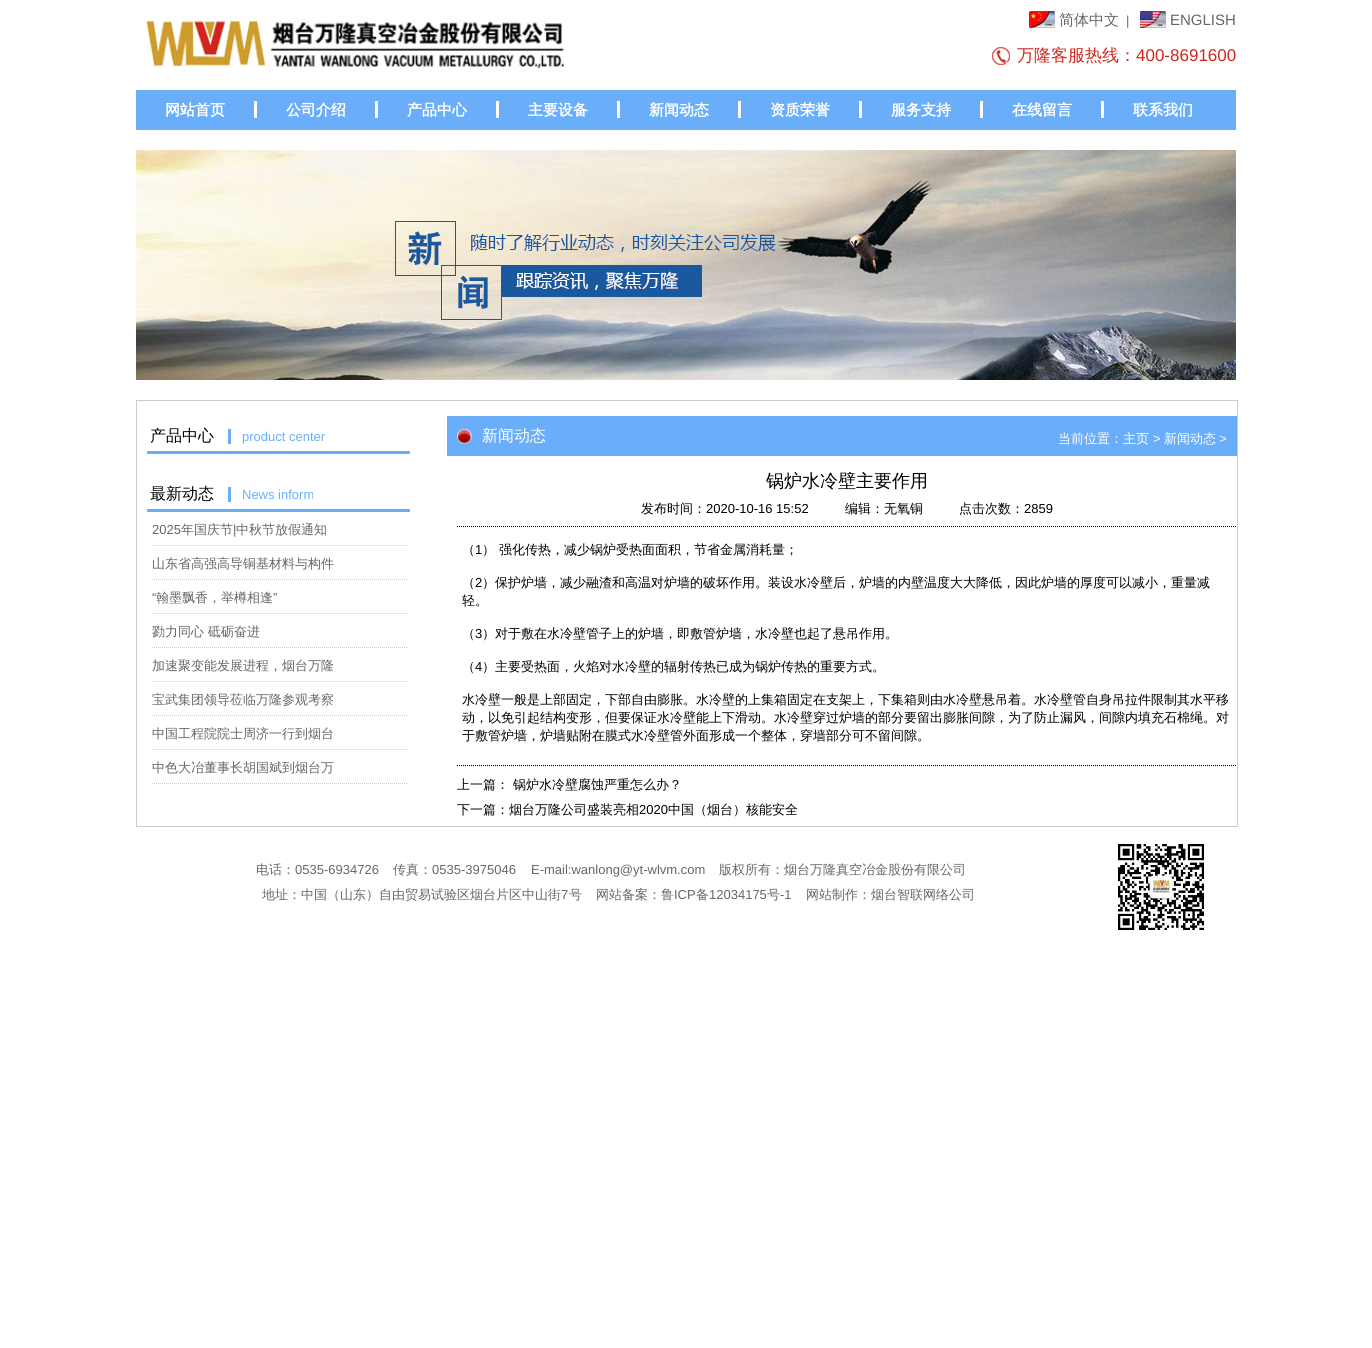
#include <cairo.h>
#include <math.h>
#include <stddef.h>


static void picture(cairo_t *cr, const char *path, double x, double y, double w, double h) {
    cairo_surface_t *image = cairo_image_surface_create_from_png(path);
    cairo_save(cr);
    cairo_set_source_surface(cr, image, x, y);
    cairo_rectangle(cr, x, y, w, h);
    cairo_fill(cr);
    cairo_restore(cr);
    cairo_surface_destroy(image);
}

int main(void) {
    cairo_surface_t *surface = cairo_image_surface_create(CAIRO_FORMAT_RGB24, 1372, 1348);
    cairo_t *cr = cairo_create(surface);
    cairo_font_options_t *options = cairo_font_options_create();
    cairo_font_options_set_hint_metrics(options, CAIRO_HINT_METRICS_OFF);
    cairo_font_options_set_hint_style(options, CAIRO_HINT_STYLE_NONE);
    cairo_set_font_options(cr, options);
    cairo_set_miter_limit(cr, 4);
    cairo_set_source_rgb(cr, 1, 1, 1);
    cairo_paint(cr);
    picture(cr, "img1.png", 146, 17, 419, 52);
    picture(cr, "img2.png", 1029, 11, 26, 17);
    cairo_select_font_face(cr, "WenQuanYi Zen Hei Medium", CAIRO_FONT_SLANT_NORMAL, CAIRO_FONT_WEIGHT_NORMAL);
    cairo_set_font_size(cr, 15);
    cairo_set_source_rgb(cr, 0.4, 0.4, 0.4);
    cairo_move_to(cr, 1059, 25);
    cairo_show_text(cr, "简体中文");
    cairo_select_font_face(cr, "Liberation Sans", CAIRO_FONT_SLANT_NORMAL, CAIRO_FONT_WEIGHT_NORMAL);
    cairo_set_font_size(cr, 13);
    cairo_move_to(cr, 1126, 25);
    cairo_show_text(cr, "|");
    picture(cr, "img3.png", 1140, 11, 26, 17);
    cairo_set_font_size(cr, 15);
    cairo_move_to(cr, 1170, 25);
    cairo_show_text(cr, "ENGLISH");
    picture(cr, "img4.png", 992, 47, 18, 18);
    cairo_select_font_face(cr, "WenQuanYi Zen Hei Medium", CAIRO_FONT_SLANT_NORMAL, CAIRO_FONT_WEIGHT_NORMAL);
    cairo_set_font_size(cr, 17);
    cairo_set_source_rgb(cr, 0.812, 0.153, 0.118);
    cairo_move_to(cr, 1017, 61);
    cairo_show_text(cr, "万隆客服热线：");
    cairo_select_font_face(cr, "Liberation Sans", CAIRO_FONT_SLANT_NORMAL, CAIRO_FONT_WEIGHT_NORMAL);
    cairo_move_to(cr, 1136, 61);
    cairo_show_text(cr, "400-8691600");
    cairo_set_source_rgb(cr, 0.416, 0.682, 0.98);
    cairo_rectangle(cr, 136, 90, 1100, 40);
    cairo_fill(cr);
    cairo_select_font_face(cr, "WenQuanYi Zen Hei", CAIRO_FONT_SLANT_NORMAL, CAIRO_FONT_WEIGHT_BOLD);
    cairo_set_font_size(cr, 15);
    cairo_set_source_rgb(cr, 1, 1, 1);
    cairo_move_to(cr, 165, 115);
    cairo_show_text(cr, "网站首页");
    cairo_move_to(cr, 286, 115);
    cairo_show_text(cr, "公司介绍");
    cairo_rectangle(cr, 254, 101, 3, 17);
    cairo_fill(cr);
    cairo_move_to(cr, 407, 115);
    cairo_show_text(cr, "产品中心");
    cairo_rectangle(cr, 375, 101, 3, 17);
    cairo_fill(cr);
    cairo_move_to(cr, 528, 115);
    cairo_show_text(cr, "主要设备");
    cairo_rectangle(cr, 496, 101, 3, 17);
    cairo_fill(cr);
    cairo_move_to(cr, 649, 115);
    cairo_show_text(cr, "新闻动态");
    cairo_rectangle(cr, 617, 101, 3, 17);
    cairo_fill(cr);
    cairo_move_to(cr, 770, 115);
    cairo_show_text(cr, "资质荣誉");
    cairo_rectangle(cr, 738, 101, 3, 17);
    cairo_fill(cr);
    cairo_move_to(cr, 891, 115);
    cairo_show_text(cr, "服务支持");
    cairo_rectangle(cr, 859, 101, 3, 17);
    cairo_fill(cr);
    cairo_move_to(cr, 1012, 115);
    cairo_show_text(cr, "在线留言");
    cairo_rectangle(cr, 980, 101, 3, 17);
    cairo_fill(cr);
    cairo_move_to(cr, 1133, 115);
    cairo_show_text(cr, "联系我们");
    cairo_rectangle(cr, 1101, 101, 3, 17);
    cairo_fill(cr);
    picture(cr, "img5.png", 136, 150, 1100, 230);
    cairo_rectangle(cr, 136.5, 400.5, 1101, 426);
    cairo_set_source_rgb(cr, 0.8, 0.8, 0.8);
    cairo_set_line_width(cr, 1);
    cairo_stroke(cr);
    cairo_set_source_rgb(cr, 0.416, 0.682, 0.98);
    cairo_rectangle(cr, 147, 451, 263, 3);
    cairo_fill(cr);
    cairo_select_font_face(cr, "WenQuanYi Zen Hei Medium", CAIRO_FONT_SLANT_NORMAL, CAIRO_FONT_WEIGHT_NORMAL);
    cairo_set_font_size(cr, 16);
    cairo_set_source_rgb(cr, 0, 0, 0);
    cairo_move_to(cr, 150, 441);
    cairo_show_text(cr, "产品中心");
    cairo_select_font_face(cr, "Liberation Sans", CAIRO_FONT_SLANT_NORMAL, CAIRO_FONT_WEIGHT_NORMAL);
    cairo_set_font_size(cr, 13);
    cairo_set_source_rgb(cr, 0.416, 0.682, 0.98);
    cairo_move_to(cr, 242, 441);
    cairo_show_text(cr, "product center");
    cairo_rectangle(cr, 228, 429, 3, 15);
    cairo_fill(cr);
    cairo_rectangle(cr, 147, 509, 263, 3);
    cairo_fill(cr);
    cairo_select_font_face(cr, "WenQuanYi Zen Hei Medium", CAIRO_FONT_SLANT_NORMAL, CAIRO_FONT_WEIGHT_NORMAL);
    cairo_set_font_size(cr, 16);
    cairo_set_source_rgb(cr, 0, 0, 0);
    cairo_move_to(cr, 150, 499);
    cairo_show_text(cr, "最新动态");
    cairo_select_font_face(cr, "Liberation Sans", CAIRO_FONT_SLANT_NORMAL, CAIRO_FONT_WEIGHT_NORMAL);
    cairo_set_font_size(cr, 13);
    cairo_set_source_rgb(cr, 0.416, 0.682, 0.98);
    cairo_move_to(cr, 242, 499);
    cairo_show_text(cr, "News inform");
    cairo_rectangle(cr, 228, 487, 3, 15);
    cairo_fill(cr);
    cairo_new_path(cr);
    cairo_move_to(cr, 152, 545.5);
    cairo_line_to(cr, 407, 545.5);
    cairo_set_source_rgb(cr, 0.8, 0.8, 0.8);
    cairo_set_dash(cr, (double[]){1, 1}, 2, 0);
    cairo_stroke(cr);
    cairo_set_source_rgb(cr, 0.4, 0.4, 0.4);
    cairo_move_to(cr, 152, 534);
    cairo_show_text(cr, "2025");
    cairo_select_font_face(cr, "WenQuanYi Zen Hei Medium", CAIRO_FONT_SLANT_NORMAL, CAIRO_FONT_WEIGHT_NORMAL);
    cairo_move_to(cr, 181, 534);
    cairo_show_text(cr, "年国庆节");
    cairo_select_font_face(cr, "Liberation Sans", CAIRO_FONT_SLANT_NORMAL, CAIRO_FONT_WEIGHT_NORMAL);
    cairo_move_to(cr, 233, 534);
    cairo_show_text(cr, "|");
    cairo_select_font_face(cr, "WenQuanYi Zen Hei Medium", CAIRO_FONT_SLANT_NORMAL, CAIRO_FONT_WEIGHT_NORMAL);
    cairo_move_to(cr, 236, 534);
    cairo_show_text(cr, "中秋节放假通知");
    cairo_new_path(cr);
    cairo_move_to(cr, 152, 579.5);
    cairo_line_to(cr, 407, 579.5);
    cairo_set_source_rgb(cr, 0.8, 0.8, 0.8);
    cairo_stroke(cr);
    cairo_set_source_rgb(cr, 0.4, 0.4, 0.4);
    cairo_move_to(cr, 152, 568);
    cairo_show_text(cr, "山东省高强高导铜基材料与构件");
    cairo_new_path(cr);
    cairo_move_to(cr, 152, 613.5);
    cairo_line_to(cr, 407, 613.5);
    cairo_set_source_rgb(cr, 0.8, 0.8, 0.8);
    cairo_stroke(cr);
    cairo_select_font_face(cr, "Liberation Sans", CAIRO_FONT_SLANT_NORMAL, CAIRO_FONT_WEIGHT_NORMAL);
    cairo_set_source_rgb(cr, 0.4, 0.4, 0.4);
    cairo_move_to(cr, 152, 602);
    cairo_show_text(cr, "“");
    cairo_select_font_face(cr, "WenQuanYi Zen Hei Medium", CAIRO_FONT_SLANT_NORMAL, CAIRO_FONT_WEIGHT_NORMAL);
    cairo_move_to(cr, 156, 602);
    cairo_show_text(cr, "翰墨飘香，举樽相逢");
    cairo_select_font_face(cr, "Liberation Sans", CAIRO_FONT_SLANT_NORMAL, CAIRO_FONT_WEIGHT_NORMAL);
    cairo_move_to(cr, 273, 602);
    cairo_show_text(cr, "”");
    cairo_new_path(cr);
    cairo_move_to(cr, 152, 647.5);
    cairo_line_to(cr, 407, 647.5);
    cairo_set_source_rgb(cr, 0.8, 0.8, 0.8);
    cairo_stroke(cr);
    cairo_select_font_face(cr, "WenQuanYi Zen Hei Medium", CAIRO_FONT_SLANT_NORMAL, CAIRO_FONT_WEIGHT_NORMAL);
    cairo_set_source_rgb(cr, 0.4, 0.4, 0.4);
    cairo_move_to(cr, 152, 636);
    cairo_show_text(cr, "勠力同心 砥砺奋进");
    cairo_new_path(cr);
    cairo_move_to(cr, 152, 681.5);
    cairo_line_to(cr, 407, 681.5);
    cairo_set_source_rgb(cr, 0.8, 0.8, 0.8);
    cairo_stroke(cr);
    cairo_set_source_rgb(cr, 0.4, 0.4, 0.4);
    cairo_move_to(cr, 152, 670);
    cairo_show_text(cr, "加速聚变能发展进程，烟台万隆");
    cairo_new_path(cr);
    cairo_move_to(cr, 152, 715.5);
    cairo_line_to(cr, 407, 715.5);
    cairo_set_source_rgb(cr, 0.8, 0.8, 0.8);
    cairo_stroke(cr);
    cairo_set_source_rgb(cr, 0.4, 0.4, 0.4);
    cairo_move_to(cr, 152, 704);
    cairo_show_text(cr, "宝武集团领导莅临万隆参观考察");
    cairo_new_path(cr);
    cairo_move_to(cr, 152, 749.5);
    cairo_line_to(cr, 407, 749.5);
    cairo_set_source_rgb(cr, 0.8, 0.8, 0.8);
    cairo_stroke(cr);
    cairo_set_source_rgb(cr, 0.4, 0.4, 0.4);
    cairo_move_to(cr, 152, 738);
    cairo_show_text(cr, "中国工程院院士周济一行到烟台");
    cairo_new_path(cr);
    cairo_move_to(cr, 152, 783.5);
    cairo_line_to(cr, 407, 783.5);
    cairo_set_source_rgb(cr, 0.8, 0.8, 0.8);
    cairo_stroke(cr);
    cairo_set_source_rgb(cr, 0.4, 0.4, 0.4);
    cairo_move_to(cr, 152, 772);
    cairo_show_text(cr, "中色大冶董事长胡国斌到烟台万");
    cairo_set_source_rgb(cr, 0.416, 0.682, 0.98);
    cairo_rectangle(cr, 447, 416, 790, 40);
    cairo_fill(cr);
    picture(cr, "img6.png", 457, 429, 15, 15);
    cairo_set_font_size(cr, 16);
    cairo_set_source_rgb(cr, 1, 1, 1);
    cairo_move_to(cr, 482, 441);
    cairo_show_text(cr, "新闻动态");
    cairo_set_font_size(cr, 13);
    cairo_move_to(cr, 1058, 443);
    cairo_show_text(cr, "当前位置：主页");
    cairo_select_font_face(cr, "Liberation Sans", CAIRO_FONT_SLANT_NORMAL, CAIRO_FONT_WEIGHT_NORMAL);
    cairo_move_to(cr, 1153, 443);
    cairo_show_text(cr, ">");
    cairo_select_font_face(cr, "WenQuanYi Zen Hei Medium", CAIRO_FONT_SLANT_NORMAL, CAIRO_FONT_WEIGHT_NORMAL);
    cairo_move_to(cr, 1164, 443);
    cairo_show_text(cr, "新闻动态");
    cairo_select_font_face(cr, "Liberation Sans", CAIRO_FONT_SLANT_NORMAL, CAIRO_FONT_WEIGHT_NORMAL);
    cairo_move_to(cr, 1219, 443);
    cairo_show_text(cr, ">");
    cairo_select_font_face(cr, "WenQuanYi Zen Hei Medium", CAIRO_FONT_SLANT_NORMAL, CAIRO_FONT_WEIGHT_NORMAL);
    cairo_set_font_size(cr, 18);
    cairo_set_source_rgb(cr, 0, 0, 0);
    cairo_move_to(cr, 766, 487);
    cairo_show_text(cr, "锅炉水冷壁主要作用");
    cairo_new_path(cr);
    cairo_move_to(cr, 457, 526.5);
    cairo_line_to(cr, 1237, 526.5);
    cairo_stroke(cr);
    cairo_set_font_size(cr, 13);
    cairo_move_to(cr, 641, 513);
    cairo_show_text(cr, "发布时间：");
    cairo_select_font_face(cr, "Liberation Sans", CAIRO_FONT_SLANT_NORMAL, CAIRO_FONT_WEIGHT_NORMAL);
    cairo_move_to(cr, 706, 513);
    cairo_show_text(cr, "2020-10-16 15:52");
    cairo_select_font_face(cr, "WenQuanYi Zen Hei Medium", CAIRO_FONT_SLANT_NORMAL, CAIRO_FONT_WEIGHT_NORMAL);
    cairo_move_to(cr, 845, 513);
    cairo_show_text(cr, "编辑：无氧铜");
    cairo_move_to(cr, 959, 513);
    cairo_show_text(cr, "点击次数：");
    cairo_select_font_face(cr, "Liberation Sans", CAIRO_FONT_SLANT_NORMAL, CAIRO_FONT_WEIGHT_NORMAL);
    cairo_move_to(cr, 1024, 513);
    cairo_show_text(cr, "2859");
    cairo_select_font_face(cr, "WenQuanYi Zen Hei Medium", CAIRO_FONT_SLANT_NORMAL, CAIRO_FONT_WEIGHT_NORMAL);
    cairo_move_to(cr, 462, 554);
    cairo_show_text(cr, "（");
    cairo_select_font_face(cr, "Liberation Sans", CAIRO_FONT_SLANT_NORMAL, CAIRO_FONT_WEIGHT_NORMAL);
    cairo_move_to(cr, 475, 554);
    cairo_show_text(cr, "1");
    cairo_select_font_face(cr, "WenQuanYi Zen Hei Medium", CAIRO_FONT_SLANT_NORMAL, CAIRO_FONT_WEIGHT_NORMAL);
    cairo_move_to(cr, 482, 554);
    cairo_show_text(cr, "） 强化传热，减少锅炉受热面面积，节省金属消耗量；");
    cairo_move_to(cr, 462, 587);
    cairo_show_text(cr, "（");
    cairo_select_font_face(cr, "Liberation Sans", CAIRO_FONT_SLANT_NORMAL, CAIRO_FONT_WEIGHT_NORMAL);
    cairo_move_to(cr, 475, 587);
    cairo_show_text(cr, "2");
    cairo_select_font_face(cr, "WenQuanYi Zen Hei Medium", CAIRO_FONT_SLANT_NORMAL, CAIRO_FONT_WEIGHT_NORMAL);
    cairo_move_to(cr, 482, 587);
    cairo_show_text(cr, "）保护炉墙，减少融渣和高温对炉墙的破坏作用。装设水冷壁后，炉墙的内壁温度大大降低，因此炉墙的厚度可以减小，重量减");
    cairo_move_to(cr, 462, 605);
    cairo_show_text(cr, "轻。");
    cairo_move_to(cr, 462, 638);
    cairo_show_text(cr, "（");
    cairo_select_font_face(cr, "Liberation Sans", CAIRO_FONT_SLANT_NORMAL, CAIRO_FONT_WEIGHT_NORMAL);
    cairo_move_to(cr, 475, 638);
    cairo_show_text(cr, "3");
    cairo_select_font_face(cr, "WenQuanYi Zen Hei Medium", CAIRO_FONT_SLANT_NORMAL, CAIRO_FONT_WEIGHT_NORMAL);
    cairo_move_to(cr, 482, 638);
    cairo_show_text(cr, "）对于敷在水冷壁管子上的炉墙，即敷管炉墙，水冷壁也起了悬吊作用。");
    cairo_move_to(cr, 462, 671);
    cairo_show_text(cr, "（");
    cairo_select_font_face(cr, "Liberation Sans", CAIRO_FONT_SLANT_NORMAL, CAIRO_FONT_WEIGHT_NORMAL);
    cairo_move_to(cr, 475, 671);
    cairo_show_text(cr, "4");
    cairo_select_font_face(cr, "WenQuanYi Zen Hei Medium", CAIRO_FONT_SLANT_NORMAL, CAIRO_FONT_WEIGHT_NORMAL);
    cairo_move_to(cr, 482, 671);
    cairo_show_text(cr, "）主要受热面，火焰对水冷壁的辐射传热已成为锅炉传热的重要方式。");
    cairo_move_to(cr, 462, 704);
    cairo_show_text(cr, "水冷壁一般是上部固定，下部自由膨胀。水冷壁的上集箱固定在支架上，下集箱则由水冷壁悬吊着。水冷壁管自身吊拉件限制其水平移");
    cairo_move_to(cr, 462, 722);
    cairo_show_text(cr, "动，以免引起结构变形，但要保证水冷壁能上下滑动。水冷壁穿过炉墙的部分要留出膨胀间隙，为了防止漏风，间隙内填充石棉绳。对");
    cairo_move_to(cr, 462, 740);
    cairo_show_text(cr, "于敷管炉墙，炉墙贴附在膜式水冷壁管外面形成一个整体，穿墙部分可不留间隙。");
    cairo_new_path(cr);
    cairo_move_to(cr, 457, 765.5);
    cairo_line_to(cr, 1237, 765.5);
    cairo_stroke(cr);
    cairo_move_to(cr, 457, 789);
    cairo_show_text(cr, "上一篇： 锅炉水冷壁腐蚀严重怎么办？");
    cairo_move_to(cr, 457, 814);
    cairo_show_text(cr, "下一篇：烟台万隆公司盛装亮相");
    cairo_select_font_face(cr, "Liberation Sans", CAIRO_FONT_SLANT_NORMAL, CAIRO_FONT_WEIGHT_NORMAL);
    cairo_move_to(cr, 639, 814);
    cairo_show_text(cr, "2020");
    cairo_select_font_face(cr, "WenQuanYi Zen Hei Medium", CAIRO_FONT_SLANT_NORMAL, CAIRO_FONT_WEIGHT_NORMAL);
    cairo_move_to(cr, 668, 814);
    cairo_show_text(cr, "中国（烟台）核能安全");
    cairo_set_source_rgb(cr, 0.4, 0.4, 0.4);
    cairo_move_to(cr, 256, 874);
    cairo_show_text(cr, "电话：");
    cairo_select_font_face(cr, "Liberation Sans", CAIRO_FONT_SLANT_NORMAL, CAIRO_FONT_WEIGHT_NORMAL);
    cairo_move_to(cr, 295, 874);
    cairo_show_text(cr, "0535-6934726");
    cairo_select_font_face(cr, "WenQuanYi Zen Hei Medium", CAIRO_FONT_SLANT_NORMAL, CAIRO_FONT_WEIGHT_NORMAL);
    cairo_move_to(cr, 393, 874);
    cairo_show_text(cr, "传真：");
    cairo_select_font_face(cr, "Liberation Sans", CAIRO_FONT_SLANT_NORMAL, CAIRO_FONT_WEIGHT_NORMAL);
    cairo_move_to(cr, 432, 874);
    cairo_show_text(cr, "0535-3975046");
    cairo_move_to(cr, 531, 874);
    cairo_show_text(cr, "E-mail:wanlong@yt-wlvm.com");
    cairo_select_font_face(cr, "WenQuanYi Zen Hei Medium", CAIRO_FONT_SLANT_NORMAL, CAIRO_FONT_WEIGHT_NORMAL);
    cairo_move_to(cr, 719, 874);
    cairo_show_text(cr, "版权所有：烟台万隆真空冶金股份有限公司");
    cairo_move_to(cr, 262, 899);
    cairo_show_text(cr, "地址：中国（山东）自由贸易试验区烟台片区中山街");
    cairo_select_font_face(cr, "Liberation Sans", CAIRO_FONT_SLANT_NORMAL, CAIRO_FONT_WEIGHT_NORMAL);
    cairo_move_to(cr, 561, 899);
    cairo_show_text(cr, "7");
    cairo_select_font_face(cr, "WenQuanYi Zen Hei Medium", CAIRO_FONT_SLANT_NORMAL, CAIRO_FONT_WEIGHT_NORMAL);
    cairo_move_to(cr, 569, 899);
    cairo_show_text(cr, "号");
    cairo_move_to(cr, 596, 899);
    cairo_show_text(cr, "网站备案：鲁");
    cairo_select_font_face(cr, "Liberation Sans", CAIRO_FONT_SLANT_NORMAL, CAIRO_FONT_WEIGHT_NORMAL);
    cairo_move_to(cr, 674, 899);
    cairo_show_text(cr, "ICP");
    cairo_select_font_face(cr, "WenQuanYi Zen Hei Medium", CAIRO_FONT_SLANT_NORMAL, CAIRO_FONT_WEIGHT_NORMAL);
    cairo_move_to(cr, 696, 899);
    cairo_show_text(cr, "备");
    cairo_select_font_face(cr, "Liberation Sans", CAIRO_FONT_SLANT_NORMAL, CAIRO_FONT_WEIGHT_NORMAL);
    cairo_move_to(cr, 709, 899);
    cairo_show_text(cr, "12034175");
    cairo_select_font_face(cr, "WenQuanYi Zen Hei Medium", CAIRO_FONT_SLANT_NORMAL, CAIRO_FONT_WEIGHT_NORMAL);
    cairo_move_to(cr, 767, 899);
    cairo_show_text(cr, "号");
    cairo_select_font_face(cr, "Liberation Sans", CAIRO_FONT_SLANT_NORMAL, CAIRO_FONT_WEIGHT_NORMAL);
    cairo_move_to(cr, 780, 899);
    cairo_show_text(cr, "-1");
    cairo_select_font_face(cr, "WenQuanYi Zen Hei Medium", CAIRO_FONT_SLANT_NORMAL, CAIRO_FONT_WEIGHT_NORMAL);
    cairo_move_to(cr, 806, 899);
    cairo_show_text(cr, "网站制作：烟台智联网络公司");
    picture(cr, "img7.png", 1118, 844, 86, 86);
    cairo_surface_write_to_png(surface, "page.png");
    cairo_font_options_destroy(options);
    cairo_destroy(cr);
    cairo_surface_destroy(surface);
    return 0;
}
